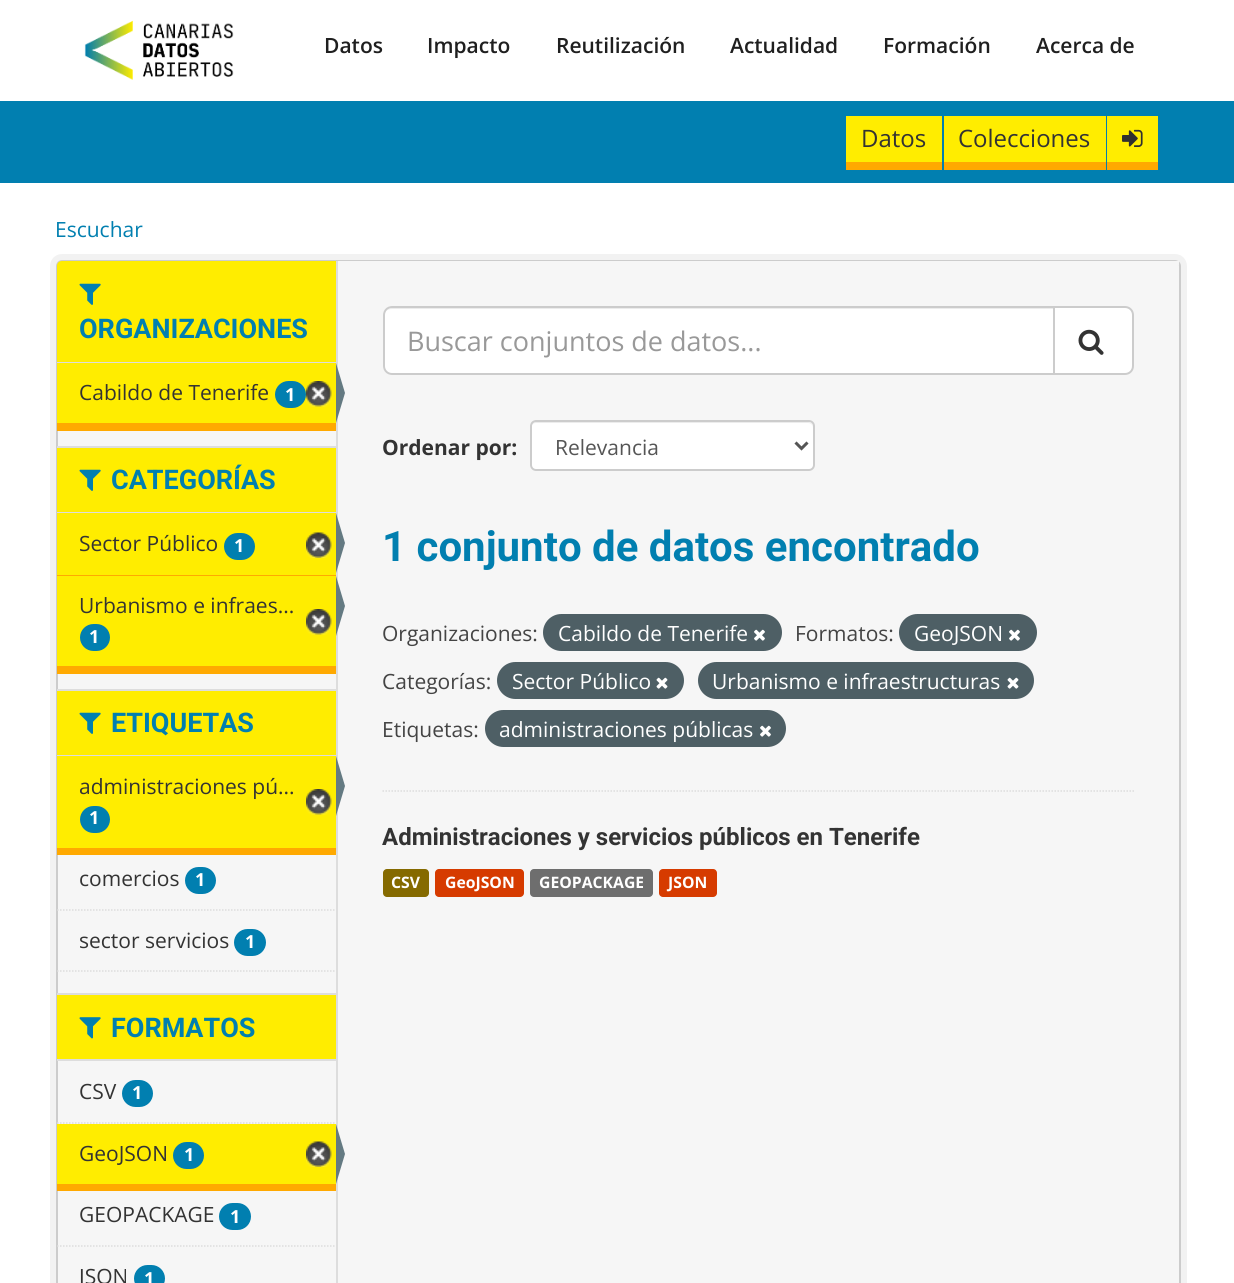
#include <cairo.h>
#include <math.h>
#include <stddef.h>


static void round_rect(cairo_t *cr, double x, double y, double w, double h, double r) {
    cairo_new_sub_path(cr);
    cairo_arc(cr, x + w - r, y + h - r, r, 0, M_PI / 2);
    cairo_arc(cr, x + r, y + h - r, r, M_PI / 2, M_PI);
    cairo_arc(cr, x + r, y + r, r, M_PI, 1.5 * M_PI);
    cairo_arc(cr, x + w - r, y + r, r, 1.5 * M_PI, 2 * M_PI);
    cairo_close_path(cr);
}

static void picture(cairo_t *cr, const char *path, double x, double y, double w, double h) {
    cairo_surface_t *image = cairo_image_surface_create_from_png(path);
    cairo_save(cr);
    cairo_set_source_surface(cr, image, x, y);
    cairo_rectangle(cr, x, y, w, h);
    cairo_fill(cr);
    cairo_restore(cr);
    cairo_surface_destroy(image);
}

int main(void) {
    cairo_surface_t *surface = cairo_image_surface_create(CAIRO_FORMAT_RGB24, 1234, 1283);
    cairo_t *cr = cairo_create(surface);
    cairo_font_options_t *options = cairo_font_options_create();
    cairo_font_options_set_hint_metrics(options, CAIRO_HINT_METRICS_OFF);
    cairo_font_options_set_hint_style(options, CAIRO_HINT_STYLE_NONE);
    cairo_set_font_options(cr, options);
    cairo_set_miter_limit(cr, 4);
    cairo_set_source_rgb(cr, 1, 1, 1);
    cairo_paint(cr);
    picture(cr, "img1.png", 84, 20, 150, 60);
    cairo_select_font_face(cr, "Open Sans SemiBold", CAIRO_FONT_SLANT_NORMAL, CAIRO_FONT_WEIGHT_NORMAL);
    cairo_set_font_size(cr, 21);
    cairo_set_source_rgb(cr, 0.122, 0.122, 0.122);
    cairo_move_to(cr, 324, 53);
    cairo_show_text(cr, "Datos");
    cairo_move_to(cr, 427, 53);
    cairo_show_text(cr, "Impacto");
    cairo_move_to(cr, 556, 53);
    cairo_show_text(cr, "Reutilización");
    cairo_move_to(cr, 730, 53);
    cairo_show_text(cr, "Actualidad");
    cairo_move_to(cr, 883, 53);
    cairo_show_text(cr, "Formación");
    cairo_move_to(cr, 1036, 53);
    cairo_show_text(cr, "Acerca de");
    cairo_set_source_rgb(cr, 0.004, 0.498, 0.69);
    cairo_rectangle(cr, 0, 101, 1234, 82);
    cairo_fill(cr);
    cairo_set_source_rgb(cr, 1, 0.663, 0);
    cairo_rectangle(cr, 846, 162, 96, 8);
    cairo_fill(cr);
    cairo_set_source_rgb(cr, 1, 0.929, 0);
    cairo_rectangle(cr, 846, 116, 96, 46);
    cairo_fill(cr);
    cairo_select_font_face(cr, "Open Sans", CAIRO_FONT_SLANT_NORMAL, CAIRO_FONT_WEIGHT_NORMAL);
    cairo_set_font_size(cr, 24);
    cairo_set_source_rgb(cr, 0.2, 0.2, 0.2);
    cairo_move_to(cr, 861, 147);
    cairo_show_text(cr, "Datos");
    cairo_set_source_rgb(cr, 1, 0.663, 0);
    cairo_new_path(cr);
    cairo_move_to(cr, 944, 162);
    cairo_line_to(cr, 944, 170);
    cairo_line_to(cr, 1106, 170);
    cairo_line_to(cr, 1106, 123);
    cairo_line_to(cr, 1106, 162);
    cairo_close_path(cr);
    cairo_fill(cr);
    cairo_set_source_rgb(cr, 1, 0.929, 0);
    cairo_rectangle(cr, 944, 116, 162, 46);
    cairo_fill(cr);
    cairo_set_source_rgb(cr, 0.2, 0.2, 0.2);
    cairo_move_to(cr, 958, 147);
    cairo_show_text(cr, "Colecciones");
    cairo_set_source_rgb(cr, 1, 0.663, 0);
    cairo_rectangle(cr, 1107, 162, 51, 8);
    cairo_fill(cr);
    cairo_set_source_rgb(cr, 1, 0.929, 0);
    cairo_rectangle(cr, 1107, 116, 51, 46);
    cairo_fill(cr);
    picture(cr, "img2.png", 1122, 129, 21, 18);
    cairo_set_font_size(cr, 21);
    cairo_set_source_rgb(cr, 0.004, 0.498, 0.69);
    cairo_move_to(cr, 55, 237);
    cairo_show_text(cr, "Escuchar");
    round_rect(cr, 53, 257, 1131, 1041, 9);
    cairo_set_source_rgb(cr, 0.949, 0.949, 0.949);
    cairo_set_line_width(cr, 6);
    cairo_stroke(cr);
    cairo_set_source_rgb(cr, 0.961, 0.961, 0.961);
    round_rect(cr, 57, 261, 1123, 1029, 5);
    cairo_fill_preserve(cr);
    cairo_set_source_rgb(cr, 0.8, 0.8, 0.8);
    cairo_set_line_width(cr, 2);
    cairo_stroke(cr);
    cairo_set_source_rgb(cr, 1, 0.929, 0);
    cairo_new_path(cr);
    cairo_move_to(cr, 62, 261);
    cairo_line_to(cr, 336, 261);
    cairo_line_to(cr, 336, 363);
    cairo_line_to(cr, 57, 363);
    cairo_line_to(cr, 57, 266);
    cairo_curve_to(cr, 57, 263, 59, 261, 62, 261);
    cairo_close_path(cr);
    cairo_fill(cr);
    cairo_set_source_rgb(cr, 0.867, 0.867, 0.867);
    cairo_rectangle(cr, 57, 362, 279, 1);
    cairo_fill(cr);
    picture(cr, "img3.png", 79, 283, 22, 22);
    cairo_select_font_face(cr, "Roboto", CAIRO_FONT_SLANT_NORMAL, CAIRO_FONT_WEIGHT_BOLD);
    cairo_set_font_size(cr, 27);
    cairo_set_source_rgb(cr, 0.004, 0.498, 0.69);
    cairo_move_to(cr, 79, 338);
    cairo_show_text(cr, "ORGANIZACIONES");
    cairo_set_source_rgb(cr, 1, 0.663, 0);
    cairo_rectangle(cr, 57, 423, 279, 8);
    cairo_fill(cr);
    cairo_set_source_rgb(cr, 1, 0.929, 0);
    cairo_rectangle(cr, 57, 363, 279, 60);
    cairo_fill(cr);
    cairo_select_font_face(cr, "Open Sans", CAIRO_FONT_SLANT_NORMAL, CAIRO_FONT_WEIGHT_NORMAL);
    cairo_set_font_size(cr, 21);
    cairo_set_source_rgb(cr, 0.2, 0.2, 0.2);
    cairo_move_to(cr, 79, 400);
    cairo_show_text(cr, "Cabildo de Tenerife");
    cairo_set_source_rgb(cr, 0.004, 0.498, 0.69);
    round_rect(cr, 275, 381, 31, 27, 13.5);
    cairo_fill(cr);
    cairo_select_font_face(cr, "Open Sans", CAIRO_FONT_SLANT_NORMAL, CAIRO_FONT_WEIGHT_BOLD);
    cairo_set_font_size(cr, 18);
    cairo_set_source_rgb(cr, 1, 1, 1);
    cairo_move_to(cr, 285, 401);
    cairo_show_text(cr, "1");
    picture(cr, "img4.png", 306, 381, 26, 26);
    cairo_set_source_rgb(cr, 0.867, 0.867, 0.867);
    cairo_rectangle(cr, 336, 261, 2, 1022);
    cairo_fill(cr);
    cairo_set_source_rgb(cr, 0.392, 0.478, 0.51);
    cairo_new_path(cr);
    cairo_move_to(cr, 336, 423);
    cairo_line_to(cr, 336, 363);
    cairo_line_to(cr, 345, 393);
    cairo_close_path(cr);
    cairo_fill(cr);
    cairo_set_source_rgb(cr, 1, 0.929, 0);
    cairo_rectangle(cr, 57, 448, 279, 64);
    cairo_fill(cr);
    cairo_set_source_rgb(cr, 0.867, 0.867, 0.867);
    cairo_rectangle(cr, 57, 446, 279, 2);
    cairo_fill(cr);
    cairo_rectangle(cr, 57, 512, 279, 1);
    cairo_fill(cr);
    picture(cr, "img3.png", 79, 469, 22, 22);
    cairo_select_font_face(cr, "Roboto", CAIRO_FONT_SLANT_NORMAL, CAIRO_FONT_WEIGHT_BOLD);
    cairo_set_font_size(cr, 27);
    cairo_set_source_rgb(cr, 0.004, 0.498, 0.69);
    cairo_move_to(cr, 111, 489);
    cairo_show_text(cr, "CATEGORÍAS");
    cairo_set_source_rgb(cr, 1, 0.663, 0);
    cairo_rectangle(cr, 57, 575, 279, 1);
    cairo_fill(cr);
    cairo_set_source_rgb(cr, 1, 0.929, 0);
    cairo_rectangle(cr, 57, 513, 279, 62);
    cairo_fill(cr);
    cairo_select_font_face(cr, "Open Sans", CAIRO_FONT_SLANT_NORMAL, CAIRO_FONT_WEIGHT_NORMAL);
    cairo_set_font_size(cr, 21);
    cairo_set_source_rgb(cr, 0.2, 0.2, 0.2);
    cairo_move_to(cr, 79, 551);
    cairo_show_text(cr, "Sector Público");
    cairo_set_source_rgb(cr, 0.004, 0.498, 0.69);
    round_rect(cr, 224, 533, 31, 27, 13.5);
    cairo_fill(cr);
    cairo_select_font_face(cr, "Open Sans", CAIRO_FONT_SLANT_NORMAL, CAIRO_FONT_WEIGHT_BOLD);
    cairo_set_font_size(cr, 18);
    cairo_set_source_rgb(cr, 1, 1, 1);
    cairo_move_to(cr, 234, 552);
    cairo_show_text(cr, "1");
    picture(cr, "img5.png", 306, 532, 26, 26);
    cairo_set_source_rgb(cr, 0.392, 0.478, 0.51);
    cairo_new_path(cr);
    cairo_move_to(cr, 336, 573);
    cairo_line_to(cr, 336, 513);
    cairo_line_to(cr, 345, 543);
    cairo_close_path(cr);
    cairo_fill(cr);
    cairo_set_source_rgb(cr, 1, 0.663, 0);
    cairo_rectangle(cr, 57, 666, 279, 8);
    cairo_fill(cr);
    cairo_set_source_rgb(cr, 1, 0.929, 0);
    cairo_rectangle(cr, 57, 576, 279, 90);
    cairo_fill(cr);
    cairo_select_font_face(cr, "Open Sans", CAIRO_FONT_SLANT_NORMAL, CAIRO_FONT_WEIGHT_NORMAL);
    cairo_set_font_size(cr, 21);
    cairo_set_source_rgb(cr, 0.2, 0.2, 0.2);
    cairo_move_to(cr, 79, 613);
    cairo_show_text(cr, "Urbanismo e infraes...");
    cairo_set_source_rgb(cr, 0.392, 0.478, 0.51);
    cairo_new_path(cr);
    cairo_move_to(cr, 336, 636);
    cairo_line_to(cr, 336, 576);
    cairo_line_to(cr, 345, 606);
    cairo_close_path(cr);
    cairo_fill(cr);
    picture(cr, "img4.png", 306, 609, 26, 26);
    cairo_set_source_rgb(cr, 0.004, 0.498, 0.69);
    round_rect(cr, 80, 624, 30, 27, 13.5);
    cairo_fill(cr);
    cairo_select_font_face(cr, "Open Sans", CAIRO_FONT_SLANT_NORMAL, CAIRO_FONT_WEIGHT_BOLD);
    cairo_set_font_size(cr, 18);
    cairo_set_source_rgb(cr, 1, 1, 1);
    cairo_move_to(cr, 89, 643);
    cairo_show_text(cr, "1");
    cairo_set_source_rgb(cr, 1, 0.929, 0);
    cairo_rectangle(cr, 57, 691, 279, 64);
    cairo_fill(cr);
    cairo_set_source_rgb(cr, 0.867, 0.867, 0.867);
    cairo_rectangle(cr, 57, 689, 279, 2);
    cairo_fill(cr);
    cairo_rectangle(cr, 57, 755, 279, 1);
    cairo_fill(cr);
    picture(cr, "img3.png", 79, 712, 22, 22);
    cairo_select_font_face(cr, "Roboto", CAIRO_FONT_SLANT_NORMAL, CAIRO_FONT_WEIGHT_BOLD);
    cairo_set_font_size(cr, 27);
    cairo_set_source_rgb(cr, 0.004, 0.498, 0.69);
    cairo_move_to(cr, 111, 732);
    cairo_show_text(cr, "ETIQUETAS");
    cairo_set_source_rgb(cr, 1, 0.663, 0);
    cairo_rectangle(cr, 57, 848, 279, 7);
    cairo_fill(cr);
    cairo_set_source_rgb(cr, 1, 0.929, 0);
    cairo_rectangle(cr, 57, 756, 279, 92);
    cairo_fill(cr);
    cairo_select_font_face(cr, "Open Sans", CAIRO_FONT_SLANT_NORMAL, CAIRO_FONT_WEIGHT_NORMAL);
    cairo_set_font_size(cr, 21);
    cairo_set_source_rgb(cr, 0.2, 0.2, 0.2);
    cairo_move_to(cr, 79, 794);
    cairo_show_text(cr, "administraciones pú...");
    picture(cr, "img4.png", 306, 789, 26, 26);
    cairo_set_source_rgb(cr, 0.392, 0.478, 0.51);
    cairo_new_path(cr);
    cairo_move_to(cr, 336, 816);
    cairo_line_to(cr, 336, 756);
    cairo_line_to(cr, 345, 786);
    cairo_close_path(cr);
    cairo_fill(cr);
    cairo_set_source_rgb(cr, 0.004, 0.498, 0.69);
    round_rect(cr, 80, 806, 30, 27, 13.5);
    cairo_fill(cr);
    cairo_select_font_face(cr, "Open Sans", CAIRO_FONT_SLANT_NORMAL, CAIRO_FONT_WEIGHT_BOLD);
    cairo_set_font_size(cr, 18);
    cairo_set_source_rgb(cr, 1, 1, 1);
    cairo_move_to(cr, 89, 824);
    cairo_show_text(cr, "1");
    cairo_new_path(cr);
    cairo_move_to(cr, 57, 910);
    cairo_line_to(cr, 336, 910);
    cairo_set_source_rgb(cr, 0.867, 0.867, 0.867);
    cairo_set_line_width(cr, 1.5);
    cairo_set_dash(cr, (double[]){1.5, 1.5}, 2, 0);
    cairo_stroke(cr);
    cairo_select_font_face(cr, "Open Sans", CAIRO_FONT_SLANT_NORMAL, CAIRO_FONT_WEIGHT_NORMAL);
    cairo_set_font_size(cr, 21);
    cairo_set_source_rgb(cr, 0.2, 0.2, 0.2);
    cairo_move_to(cr, 79, 886);
    cairo_show_text(cr, "comercios");
    cairo_set_source_rgb(cr, 0.004, 0.498, 0.69);
    round_rect(cr, 185, 867, 31, 27, 13.5);
    cairo_fill(cr);
    cairo_select_font_face(cr, "Open Sans", CAIRO_FONT_SLANT_NORMAL, CAIRO_FONT_WEIGHT_BOLD);
    cairo_set_font_size(cr, 18);
    cairo_set_source_rgb(cr, 1, 1, 1);
    cairo_move_to(cr, 195, 886);
    cairo_show_text(cr, "1");
    cairo_select_font_face(cr, "Open Sans", CAIRO_FONT_SLANT_NORMAL, CAIRO_FONT_WEIGHT_NORMAL);
    cairo_set_font_size(cr, 21);
    cairo_set_source_rgb(cr, 0.2, 0.2, 0.2);
    cairo_move_to(cr, 79, 948);
    cairo_show_text(cr, "sector servicios");
    cairo_set_source_rgb(cr, 0.004, 0.498, 0.69);
    round_rect(cr, 234, 929, 32, 27, 13.5);
    cairo_fill(cr);
    cairo_select_font_face(cr, "Open Sans", CAIRO_FONT_SLANT_NORMAL, CAIRO_FONT_WEIGHT_BOLD);
    cairo_set_font_size(cr, 18);
    cairo_set_source_rgb(cr, 1, 1, 1);
    cairo_move_to(cr, 245, 948);
    cairo_show_text(cr, "1");
    cairo_new_path(cr);
    cairo_move_to(cr, 57, 971);
    cairo_line_to(cr, 336, 971);
    cairo_set_source_rgb(cr, 0.867, 0.867, 0.867);
    cairo_stroke(cr);
    cairo_set_source_rgb(cr, 1, 0.929, 0);
    cairo_rectangle(cr, 57, 995, 279, 64);
    cairo_fill(cr);
    cairo_set_source_rgb(cr, 0.867, 0.867, 0.867);
    cairo_rectangle(cr, 57, 993, 279, 2);
    cairo_fill(cr);
    cairo_rectangle(cr, 57, 1059, 279, 2);
    cairo_fill(cr);
    picture(cr, "img6.png", 79, 1017, 22, 22);
    cairo_select_font_face(cr, "Roboto", CAIRO_FONT_SLANT_NORMAL, CAIRO_FONT_WEIGHT_BOLD);
    cairo_set_font_size(cr, 27);
    cairo_set_source_rgb(cr, 0.004, 0.498, 0.69);
    cairo_move_to(cr, 111, 1037);
    cairo_show_text(cr, "FORMATOS");
    cairo_new_path(cr);
    cairo_move_to(cr, 57, 1123);
    cairo_line_to(cr, 336, 1123);
    cairo_set_source_rgb(cr, 0.867, 0.867, 0.867);
    cairo_stroke(cr);
    cairo_select_font_face(cr, "Open Sans", CAIRO_FONT_SLANT_NORMAL, CAIRO_FONT_WEIGHT_NORMAL);
    cairo_set_font_size(cr, 21);
    cairo_set_source_rgb(cr, 0.2, 0.2, 0.2);
    cairo_move_to(cr, 79, 1099);
    cairo_show_text(cr, "CSV");
    cairo_set_source_rgb(cr, 0.004, 0.498, 0.69);
    round_rect(cr, 122, 1080, 31, 27, 13.5);
    cairo_fill(cr);
    cairo_select_font_face(cr, "Open Sans", CAIRO_FONT_SLANT_NORMAL, CAIRO_FONT_WEIGHT_BOLD);
    cairo_set_font_size(cr, 18);
    cairo_set_source_rgb(cr, 1, 1, 1);
    cairo_move_to(cr, 132, 1099);
    cairo_show_text(cr, "1");
    cairo_set_source_rgb(cr, 1, 0.663, 0);
    cairo_rectangle(cr, 57, 1184, 279, 7);
    cairo_fill(cr);
    cairo_set_source_rgb(cr, 1, 0.929, 0);
    cairo_rectangle(cr, 57, 1124, 279, 60);
    cairo_fill(cr);
    cairo_select_font_face(cr, "Open Sans", CAIRO_FONT_SLANT_NORMAL, CAIRO_FONT_WEIGHT_NORMAL);
    cairo_set_font_size(cr, 21);
    cairo_set_source_rgb(cr, 0.2, 0.2, 0.2);
    cairo_move_to(cr, 79, 1161);
    cairo_show_text(cr, "GeoJSON");
    cairo_set_source_rgb(cr, 0.004, 0.498, 0.69);
    round_rect(cr, 173, 1142, 31, 27, 13.5);
    cairo_fill(cr);
    cairo_select_font_face(cr, "Open Sans", CAIRO_FONT_SLANT_NORMAL, CAIRO_FONT_WEIGHT_BOLD);
    cairo_set_font_size(cr, 18);
    cairo_set_source_rgb(cr, 1, 1, 1);
    cairo_move_to(cr, 184, 1161);
    cairo_show_text(cr, "1");
    picture(cr, "img5.png", 306, 1141, 26, 26);
    cairo_set_source_rgb(cr, 0.392, 0.478, 0.51);
    cairo_new_path(cr);
    cairo_move_to(cr, 336, 1184);
    cairo_line_to(cr, 336, 1124);
    cairo_line_to(cr, 345, 1154);
    cairo_close_path(cr);
    cairo_fill(cr);
    cairo_new_path(cr);
    cairo_move_to(cr, 57, 1246);
    cairo_line_to(cr, 336, 1246);
    cairo_set_source_rgb(cr, 0.867, 0.867, 0.867);
    cairo_stroke(cr);
    cairo_select_font_face(cr, "Open Sans", CAIRO_FONT_SLANT_NORMAL, CAIRO_FONT_WEIGHT_NORMAL);
    cairo_set_font_size(cr, 21);
    cairo_set_source_rgb(cr, 0.2, 0.2, 0.2);
    cairo_move_to(cr, 79, 1222);
    cairo_show_text(cr, "GEOPACKAGE");
    cairo_set_source_rgb(cr, 0.004, 0.498, 0.69);
    round_rect(cr, 219, 1203, 32, 27, 13.5);
    cairo_fill(cr);
    cairo_select_font_face(cr, "Open Sans", CAIRO_FONT_SLANT_NORMAL, CAIRO_FONT_WEIGHT_BOLD);
    cairo_set_font_size(cr, 18);
    cairo_set_source_rgb(cr, 1, 1, 1);
    cairo_move_to(cr, 230, 1223);
    cairo_show_text(cr, "1");
    cairo_select_font_face(cr, "Open Sans", CAIRO_FONT_SLANT_NORMAL, CAIRO_FONT_WEIGHT_NORMAL);
    cairo_set_font_size(cr, 21);
    cairo_set_source_rgb(cr, 0.2, 0.2, 0.2);
    cairo_move_to(cr, 79, 1284);
    cairo_show_text(cr, "JSON");
    cairo_set_source_rgb(cr, 0.004, 0.498, 0.69);
    round_rect(cr, 134, 1265, 31, 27, 13.5);
    cairo_fill(cr);
    cairo_select_font_face(cr, "Open Sans", CAIRO_FONT_SLANT_NORMAL, CAIRO_FONT_WEIGHT_BOLD);
    cairo_set_font_size(cr, 18);
    cairo_set_source_rgb(cr, 1, 1, 1);
    cairo_move_to(cr, 144, 1285);
    cairo_show_text(cr, "1");
    cairo_set_source_rgb(cr, 0.961, 0.961, 0.961);
    cairo_rectangle(cr, 338, 261, 841, 4);
    cairo_fill(cr);
    cairo_new_path(cr);
    cairo_move_to(cr, 382.5, 791);
    cairo_line_to(cr, 1134, 791);
    cairo_set_source_rgb(cr, 0.867, 0.867, 0.867);
    cairo_stroke(cr);
    cairo_set_source_rgb(cr, 1, 1, 1);
    cairo_new_path(cr);
    cairo_move_to(cr, 392, 306);
    cairo_line_to(cr, 1055, 306);
    cairo_line_to(cr, 1055, 375);
    cairo_line_to(cr, 392, 375);
    cairo_curve_to(cr, 387, 375, 383, 371, 383, 366);
    cairo_line_to(cr, 383, 315);
    cairo_curve_to(cr, 383, 310, 387, 306, 392, 306);
    cairo_close_path(cr);
    cairo_fill(cr);
    cairo_set_source_rgb(cr, 0.925, 0.925, 0.925);
    cairo_new_path(cr);
    cairo_move_to(cr, 392, 309);
    cairo_line_to(cr, 1053, 309);
    cairo_line_to(cr, 1053, 308);
    cairo_line_to(cr, 392, 308);
    cairo_curve_to(cr, 388, 308, 384, 312, 384, 316);
    cairo_curve_to(cr, 384, 312, 387, 309, 392, 309);
    cairo_close_path(cr);
    cairo_fill(cr);
    cairo_new_path(cr);
    cairo_move_to(cr, 392, 307);
    cairo_line_to(cr, 1054, 307);
    cairo_line_to(cr, 1054, 374);
    cairo_line_to(cr, 392, 374);
    cairo_curve_to(cr, 387.5, 374, 384, 370.5, 384, 366);
    cairo_line_to(cr, 384, 315);
    cairo_curve_to(cr, 384, 310.5, 387.5, 307, 392, 307);
    cairo_close_path(cr);
    cairo_set_source_rgb(cr, 0.8, 0.8, 0.8);
    cairo_set_line_width(cr, 2);
    cairo_set_dash(cr, NULL, 0, 0);
    cairo_stroke(cr);
    cairo_select_font_face(cr, "Open Sans", CAIRO_FONT_SLANT_NORMAL, CAIRO_FONT_WEIGHT_NORMAL);
    cairo_set_font_size(cr, 27);
    cairo_set_source_rgb(cr, 0.6, 0.6, 0.6);
    cairo_move_to(cr, 407, 351);
    cairo_show_text(cr, "Buscar conjuntos de datos...");
    cairo_set_source_rgb(cr, 1, 1, 1);
    cairo_new_path(cr);
    cairo_move_to(cr, 1054, 307);
    cairo_line_to(cr, 1125, 307);
    cairo_curve_to(cr, 1129.5, 307, 1133, 310.5, 1133, 315);
    cairo_line_to(cr, 1133, 366);
    cairo_curve_to(cr, 1133, 370.5, 1129.5, 374, 1125, 374);
    cairo_line_to(cr, 1054, 374);
    cairo_close_path(cr);
    cairo_fill_preserve(cr);
    cairo_set_source_rgb(cr, 0.8, 0.8, 0.8);
    cairo_stroke(cr);
    picture(cr, "img7.png", 1078, 329, 26, 26);
    cairo_select_font_face(cr, "Open Sans", CAIRO_FONT_SLANT_NORMAL, CAIRO_FONT_WEIGHT_BOLD);
    cairo_set_font_size(cr, 21);
    cairo_set_source_rgb(cr, 0.2, 0.2, 0.2);
    cairo_move_to(cr, 382, 455);
    cairo_show_text(cr, "Ordenar por:");
    cairo_set_source_rgb(cr, 1, 1, 1);
    round_rect(cr, 530, 420, 285, 51, 6);
    cairo_fill(cr);
    cairo_set_source_rgb(cr, 0.925, 0.925, 0.925);
    cairo_new_path(cr);
    cairo_move_to(cr, 536, 423);
    cairo_line_to(cr, 808, 423);
    cairo_curve_to(cr, 811, 423, 813, 425, 813, 428);
    cairo_line_to(cr, 813, 427);
    cairo_curve_to(cr, 813, 424, 811, 422, 808, 422);
    cairo_line_to(cr, 536, 422);
    cairo_curve_to(cr, 533, 422, 531, 424, 531, 427);
    cairo_line_to(cr, 531, 428);
    cairo_curve_to(cr, 531, 425, 533, 423, 536, 423);
    cairo_close_path(cr);
    cairo_fill(cr);
    round_rect(cr, 531, 421, 283, 49, 5);
    cairo_set_source_rgb(cr, 0.8, 0.8, 0.8);
    cairo_stroke(cr);
    cairo_new_path(cr);
    cairo_move_to(cr, 795.5, 442.5);
    cairo_line_to(cr, 801.5, 448.5);
    cairo_line_to(cr, 807.5, 442.5);
    cairo_set_source_rgb(cr, 0.333, 0.333, 0.333);
    cairo_set_line_width(cr, 3);
    cairo_stroke(cr);
    cairo_select_font_face(cr, "Open Sans", CAIRO_FONT_SLANT_NORMAL, CAIRO_FONT_WEIGHT_NORMAL);
    cairo_move_to(cr, 555, 455);
    cairo_show_text(cr, "Relevancia");
    cairo_select_font_face(cr, "Roboto", CAIRO_FONT_SLANT_NORMAL, CAIRO_FONT_WEIGHT_BOLD);
    cairo_set_font_size(cr, 42);
    cairo_set_source_rgb(cr, 0.004, 0.498, 0.69);
    cairo_move_to(cr, 382, 561);
    cairo_show_text(cr, "1 conjunto de datos encontrado");
    cairo_select_font_face(cr, "Open Sans", CAIRO_FONT_SLANT_NORMAL, CAIRO_FONT_WEIGHT_NORMAL);
    cairo_set_font_size(cr, 21);
    cairo_set_source_rgb(cr, 0.267, 0.267, 0.267);
    cairo_move_to(cr, 382, 641);
    cairo_show_text(cr, "Organizaciones:");
    cairo_set_source_rgb(cr, 0.306, 0.373, 0.396);
    round_rect(cr, 543, 614, 239, 37, 18.5);
    cairo_fill(cr);
    cairo_set_source_rgb(cr, 1, 1, 1);
    cairo_move_to(cr, 558, 641);
    cairo_show_text(cr, "Cabildo de Tenerife");
    picture(cr, "img8.png", 754, 629, 11, 12);
    cairo_set_source_rgb(cr, 0.267, 0.267, 0.267);
    cairo_move_to(cr, 795, 641);
    cairo_show_text(cr, "Formatos:");
    cairo_set_source_rgb(cr, 0.306, 0.373, 0.396);
    round_rect(cr, 899, 614, 138, 37, 18.5);
    cairo_fill(cr);
    cairo_set_source_rgb(cr, 1, 1, 1);
    cairo_move_to(cr, 914, 641);
    cairo_show_text(cr, "GeoJSON");
    picture(cr, "img8.png", 1009, 629, 11, 12);
    cairo_set_source_rgb(cr, 0.267, 0.267, 0.267);
    cairo_move_to(cr, 382, 689);
    cairo_show_text(cr, "Categorías:");
    cairo_set_source_rgb(cr, 0.306, 0.373, 0.396);
    round_rect(cr, 497, 662, 187, 37, 18.5);
    cairo_fill(cr);
    cairo_set_source_rgb(cr, 1, 1, 1);
    cairo_move_to(cr, 512, 689);
    cairo_show_text(cr, "Sector Público");
    picture(cr, "img9.png", 656, 677, 12, 12);
    cairo_set_source_rgb(cr, 0.306, 0.373, 0.396);
    round_rect(cr, 698, 662, 336, 37, 18.5);
    cairo_fill(cr);
    cairo_set_source_rgb(cr, 1, 1, 1);
    cairo_move_to(cr, 712, 689);
    cairo_show_text(cr, "Urbanismo e infraestructuras");
    picture(cr, "img9.png", 1007, 677, 12, 12);
    cairo_set_source_rgb(cr, 0.267, 0.267, 0.267);
    cairo_move_to(cr, 382, 737);
    cairo_show_text(cr, "Etiquetas:");
    cairo_set_source_rgb(cr, 0.306, 0.373, 0.396);
    round_rect(cr, 485, 710, 301, 37, 18.5);
    cairo_fill(cr);
    cairo_set_source_rgb(cr, 1, 1, 1);
    cairo_move_to(cr, 499, 737);
    cairo_show_text(cr, "administraciones públicas");
    picture(cr, "img8.png", 760, 725, 11, 12);
    cairo_select_font_face(cr, "Roboto", CAIRO_FONT_SLANT_NORMAL, CAIRO_FONT_WEIGHT_BOLD);
    cairo_set_font_size(cr, 24);
    cairo_set_source_rgb(cr, 0.2, 0.2, 0.2);
    cairo_move_to(cr, 382, 845);
    cairo_show_text(cr, "Administraciones y servicios públicos en Tenerife");
    cairo_set_source_rgb(cr, 0.522, 0.416, 0);
    round_rect(cr, 383, 869, 46, 28, 4);
    cairo_fill(cr);
    cairo_select_font_face(cr, "Open Sans", CAIRO_FONT_SLANT_NORMAL, CAIRO_FONT_WEIGHT_BOLD);
    cairo_set_font_size(cr, 15.75);
    cairo_set_source_rgb(cr, 1, 1, 1);
    cairo_move_to(cr, 391, 888);
    cairo_show_text(cr, "CSV");
    cairo_set_source_rgb(cr, 0.839, 0.231, 0);
    round_rect(cr, 435, 869, 89, 28, 4);
    cairo_fill(cr);
    cairo_set_source_rgb(cr, 1, 1, 1);
    cairo_move_to(cr, 445, 888);
    cairo_show_text(cr, "GeoJSON");
    cairo_set_source_rgb(cr, 0.431, 0.431, 0.431);
    round_rect(cr, 530, 869, 123, 28, 4);
    cairo_fill(cr);
    cairo_set_source_rgb(cr, 1, 1, 1);
    cairo_move_to(cr, 539, 888);
    cairo_show_text(cr, "GEOPACKAGE");
    cairo_set_source_rgb(cr, 0.839, 0.231, 0);
    round_rect(cr, 659, 869, 58, 28, 4);
    cairo_fill(cr);
    cairo_set_source_rgb(cr, 1, 1, 1);
    cairo_move_to(cr, 668, 888);
    cairo_show_text(cr, "JSON");
    cairo_surface_write_to_png(surface, "page.png");
    cairo_font_options_destroy(options);
    cairo_destroy(cr);
    cairo_surface_destroy(surface);
    return 0;
}
